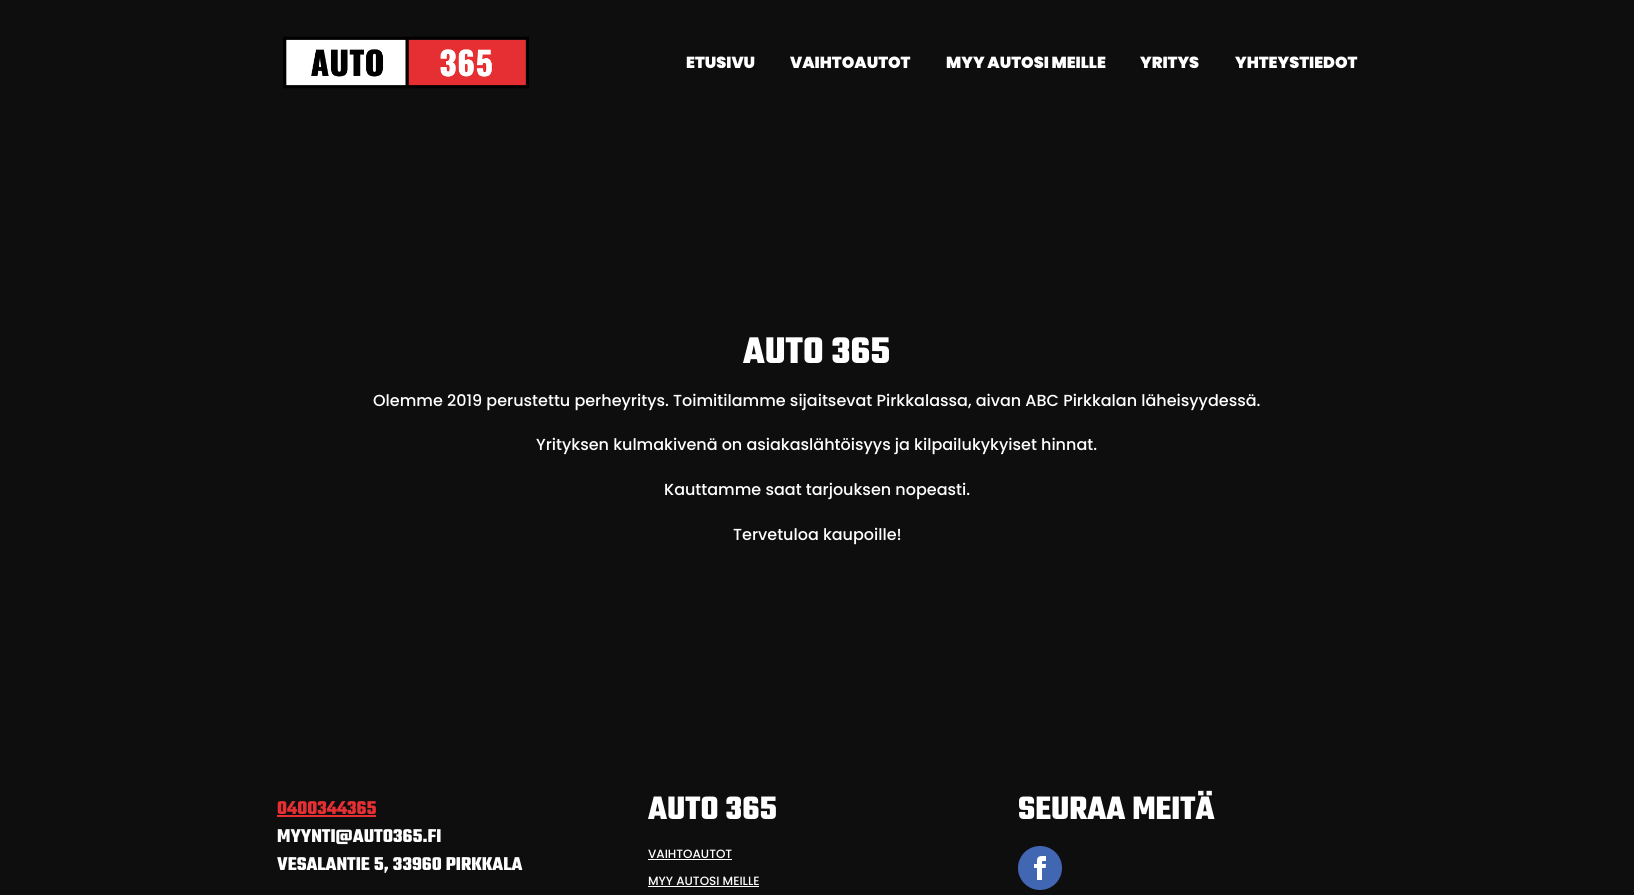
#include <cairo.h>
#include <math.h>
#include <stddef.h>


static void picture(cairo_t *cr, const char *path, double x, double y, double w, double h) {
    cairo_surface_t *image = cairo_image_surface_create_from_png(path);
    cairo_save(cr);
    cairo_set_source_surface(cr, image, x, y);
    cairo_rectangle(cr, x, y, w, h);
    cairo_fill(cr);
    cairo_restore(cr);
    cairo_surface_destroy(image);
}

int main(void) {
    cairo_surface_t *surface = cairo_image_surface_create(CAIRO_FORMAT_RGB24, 1634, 895);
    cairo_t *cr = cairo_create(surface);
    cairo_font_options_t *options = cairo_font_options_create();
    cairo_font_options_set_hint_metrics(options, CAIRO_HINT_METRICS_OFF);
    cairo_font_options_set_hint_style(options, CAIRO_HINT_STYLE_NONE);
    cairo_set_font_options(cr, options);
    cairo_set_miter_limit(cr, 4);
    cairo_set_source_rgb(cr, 0.055, 0.055, 0.055);
    cairo_paint(cr);
    picture(cr, "img1.png", 283, 36, 246, 53);
    cairo_select_font_face(cr, "Poppins Black", CAIRO_FONT_SLANT_NORMAL, CAIRO_FONT_WEIGHT_NORMAL);
    cairo_set_font_size(cr, 16);
    cairo_set_source_rgb(cr, 1, 1, 1);
    cairo_move_to(cr, 686, 68);
    cairo_show_text(cr, "ETUSIVU");
    cairo_move_to(cr, 790, 68);
    cairo_show_text(cr, "VAIHTOAUTOT");
    cairo_move_to(cr, 946, 68);
    cairo_show_text(cr, "MYY AUTOSI MEILLE");
    cairo_move_to(cr, 1140, 68);
    cairo_show_text(cr, "YRITYS");
    cairo_move_to(cr, 1235, 68);
    cairo_show_text(cr, "YHTEYSTIEDOT");
    cairo_select_font_face(cr, "Teko", CAIRO_FONT_SLANT_NORMAL, CAIRO_FONT_WEIGHT_BOLD);
    cairo_set_font_size(cr, 40);
    cairo_move_to(cr, 743, 363);
    cairo_show_text(cr, "AUTO 365");
    cairo_select_font_face(cr, "Poppins Medium", CAIRO_FONT_SLANT_NORMAL, CAIRO_FONT_WEIGHT_NORMAL);
    cairo_set_font_size(cr, 16);
    cairo_move_to(cr, 373, 406);
    cairo_show_text(cr, "Olemme 2019 perustettu perheyritys. Toimitilamme sijaitsevat Pirkkalassa, aivan ABC Pirkkalan läheisyydessä.");
    cairo_move_to(cr, 536, 450);
    cairo_show_text(cr, "Yrityksen kulmakivenä on asiakaslähtöisyys ja kilpailukykyiset hinnat.");
    cairo_move_to(cr, 664, 495);
    cairo_show_text(cr, "Kauttamme saat tarjouksen nopeasti.");
    cairo_move_to(cr, 733, 540);
    cairo_show_text(cr, "Tervetuloa kaupoille!");
    cairo_select_font_face(cr, "Teko", CAIRO_FONT_SLANT_NORMAL, CAIRO_FONT_WEIGHT_BOLD);
    cairo_set_font_size(cr, 20);
    cairo_set_source_rgb(cr, 0.902, 0.184, 0.196);
    cairo_move_to(cr, 277, 814);
    cairo_show_text(cr, "0400344365");
    cairo_rectangle(cr, 277, 815, 99, 2);
    cairo_fill(cr);
    cairo_set_source_rgb(cr, 1, 1, 1);
    cairo_move_to(cr, 277, 842);
    cairo_show_text(cr, "MYYNTI@AUTO365.FI");
    cairo_move_to(cr, 277, 870);
    cairo_show_text(cr, "VESALANTIE 5, 33960 PIRKKALA");
    cairo_set_font_size(cr, 35);
    cairo_move_to(cr, 648, 819);
    cairo_show_text(cr, "AUTO 365");
    cairo_select_font_face(cr, "Poppins Medium", CAIRO_FONT_SLANT_NORMAL, CAIRO_FONT_WEIGHT_NORMAL);
    cairo_set_font_size(cr, 12);
    cairo_move_to(cr, 648, 858);
    cairo_show_text(cr, "VAIHTOAUTOT");
    cairo_rectangle(cr, 648, 859, 84, 1);
    cairo_fill(cr);
    cairo_move_to(cr, 648, 885);
    cairo_show_text(cr, "MYY AUTOSI MEILLE");
    cairo_rectangle(cr, 648, 886, 111, 1);
    cairo_fill(cr);
    cairo_select_font_face(cr, "Teko", CAIRO_FONT_SLANT_NORMAL, CAIRO_FONT_WEIGHT_BOLD);
    cairo_set_font_size(cr, 35);
    cairo_move_to(cr, 1018, 819);
    cairo_show_text(cr, "SEURAA MEITÄ");
    cairo_set_source_rgb(cr, 0.259, 0.404, 0.698);
    cairo_new_path(cr);
    cairo_arc(cr, 1040, 868, 22, 0, 2 * M_PI);
    cairo_fill(cr);
    picture(cr, "img2.png", 1034, 856, 12, 24);
    cairo_surface_write_to_png(surface, "page.png");
    cairo_font_options_destroy(options);
    cairo_destroy(cr);
    cairo_surface_destroy(surface);
    return 0;
}
